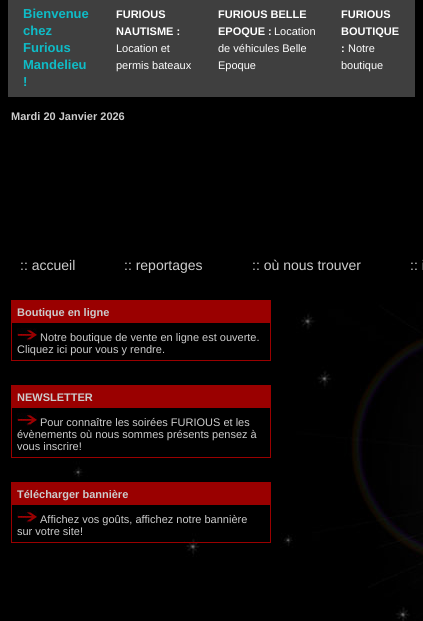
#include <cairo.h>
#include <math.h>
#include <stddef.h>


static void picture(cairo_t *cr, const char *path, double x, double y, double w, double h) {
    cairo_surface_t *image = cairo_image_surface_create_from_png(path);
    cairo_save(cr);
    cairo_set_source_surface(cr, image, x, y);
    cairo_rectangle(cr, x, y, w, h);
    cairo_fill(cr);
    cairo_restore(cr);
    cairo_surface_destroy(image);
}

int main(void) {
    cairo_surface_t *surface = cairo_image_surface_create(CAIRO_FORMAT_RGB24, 423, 621);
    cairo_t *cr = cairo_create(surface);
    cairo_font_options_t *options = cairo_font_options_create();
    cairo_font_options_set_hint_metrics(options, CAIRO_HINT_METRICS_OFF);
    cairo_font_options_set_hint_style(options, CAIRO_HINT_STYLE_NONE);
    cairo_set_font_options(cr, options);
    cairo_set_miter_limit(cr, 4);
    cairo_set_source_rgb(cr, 0, 0, 0);
    cairo_paint(cr);
    cairo_set_source_rgb(cr, 0.247, 0.247, 0.247);
    cairo_rectangle(cr, 8, 0, 407, 97);
    cairo_fill(cr);
    cairo_select_font_face(cr, "Liberation Sans", CAIRO_FONT_SLANT_NORMAL, CAIRO_FONT_WEIGHT_BOLD);
    cairo_set_font_size(cr, 13);
    cairo_set_source_rgb(cr, 0.055, 0.737, 0.78);
    cairo_move_to(cr, 23, 18);
    cairo_show_text(cr, "Bienvenue");
    cairo_move_to(cr, 23, 35);
    cairo_show_text(cr, "chez");
    cairo_move_to(cr, 23, 52);
    cairo_show_text(cr, "Furious");
    cairo_move_to(cr, 23, 69);
    cairo_show_text(cr, "Mandelieu");
    cairo_move_to(cr, 23, 86);
    cairo_show_text(cr, "!");
    cairo_set_font_size(cr, 11);
    cairo_set_source_rgb(cr, 1, 1, 1);
    cairo_move_to(cr, 116, 18);
    cairo_show_text(cr, "FURIOUS");
    cairo_move_to(cr, 116, 35);
    cairo_show_text(cr, "NAUTISME :");
    cairo_select_font_face(cr, "Liberation Sans", CAIRO_FONT_SLANT_NORMAL, CAIRO_FONT_WEIGHT_NORMAL);
    cairo_move_to(cr, 116, 52);
    cairo_show_text(cr, "Location et");
    cairo_move_to(cr, 116, 69);
    cairo_show_text(cr, "permis bateaux");
    cairo_select_font_face(cr, "Liberation Sans", CAIRO_FONT_SLANT_NORMAL, CAIRO_FONT_WEIGHT_BOLD);
    cairo_move_to(cr, 218, 18);
    cairo_show_text(cr, "FURIOUS BELLE");
    cairo_move_to(cr, 218, 35);
    cairo_show_text(cr, "EPOQUE :");
    cairo_select_font_face(cr, "Liberation Sans", CAIRO_FONT_SLANT_NORMAL, CAIRO_FONT_WEIGHT_NORMAL);
    cairo_move_to(cr, 274, 35);
    cairo_show_text(cr, "Location");
    cairo_move_to(cr, 218, 52);
    cairo_show_text(cr, "de véhicules Belle");
    cairo_move_to(cr, 218, 69);
    cairo_show_text(cr, "Epoque");
    cairo_select_font_face(cr, "Liberation Sans", CAIRO_FONT_SLANT_NORMAL, CAIRO_FONT_WEIGHT_BOLD);
    cairo_move_to(cr, 341, 18);
    cairo_show_text(cr, "FURIOUS");
    cairo_move_to(cr, 341, 35);
    cairo_show_text(cr, "BOUTIQUE");
    cairo_move_to(cr, 341, 52);
    cairo_show_text(cr, ":");
    cairo_select_font_face(cr, "Liberation Sans", CAIRO_FONT_SLANT_NORMAL, CAIRO_FONT_WEIGHT_NORMAL);
    cairo_move_to(cr, 348, 52);
    cairo_show_text(cr, "Notre");
    cairo_move_to(cr, 341, 69);
    cairo_show_text(cr, "boutique");
    cairo_select_font_face(cr, "Liberation Sans", CAIRO_FONT_SLANT_NORMAL, CAIRO_FONT_WEIGHT_BOLD);
    cairo_set_source_rgb(cr, 0.8, 0.8, 0.8);
    cairo_move_to(cr, 11, 120);
    cairo_show_text(cr, "Mardi 20 Janvier 2026");
    cairo_select_font_face(cr, "Liberation Sans", CAIRO_FONT_SLANT_NORMAL, CAIRO_FONT_WEIGHT_NORMAL);
    cairo_set_font_size(cr, 14);
    cairo_move_to(cr, 20, 270);
    cairo_show_text(cr, ":: accueil");
    cairo_move_to(cr, 124, 270);
    cairo_show_text(cr, ":: reportages");
    cairo_move_to(cr, 252, 270);
    cairo_show_text(cr, ":: où nous trouver");
    cairo_move_to(cr, 410, 270);
    cairo_show_text(cr, ":: i");
    picture(cr, "img1.png", 73, 302, 350, 319);
    cairo_rectangle(cr, 11.5, 300.5, 259, 60);
    cairo_set_source_rgb(cr, 0.604, 0, 0);
    cairo_set_line_width(cr, 1);
    cairo_stroke(cr);
    cairo_rectangle(cr, 12, 301, 258, 22);
    cairo_fill(cr);
    cairo_select_font_face(cr, "Liberation Sans", CAIRO_FONT_SLANT_NORMAL, CAIRO_FONT_WEIGHT_BOLD);
    cairo_set_font_size(cr, 11);
    cairo_set_source_rgb(cr, 0.8, 0.8, 0.8);
    cairo_move_to(cr, 17, 316);
    cairo_show_text(cr, "Boutique en ligne");
    picture(cr, "img2.png", 17, 328, 20, 13);
    cairo_select_font_face(cr, "Liberation Sans", CAIRO_FONT_SLANT_NORMAL, CAIRO_FONT_WEIGHT_NORMAL);
    cairo_move_to(cr, 40, 341);
    cairo_show_text(cr, "Notre boutique de vente en ligne est ouverte.");
    cairo_move_to(cr, 17, 353);
    cairo_show_text(cr, "Cliquez ici pour vous y rendre.");
    cairo_rectangle(cr, 11.5, 385.5, 259, 72);
    cairo_set_source_rgb(cr, 0.604, 0, 0);
    cairo_stroke(cr);
    cairo_rectangle(cr, 12, 386, 258, 22);
    cairo_fill(cr);
    cairo_select_font_face(cr, "Liberation Sans", CAIRO_FONT_SLANT_NORMAL, CAIRO_FONT_WEIGHT_BOLD);
    cairo_set_source_rgb(cr, 0.8, 0.8, 0.8);
    cairo_move_to(cr, 17, 401);
    cairo_show_text(cr, "NEWSLETTER");
    picture(cr, "img2.png", 17, 413, 20, 13);
    cairo_select_font_face(cr, "Liberation Sans", CAIRO_FONT_SLANT_NORMAL, CAIRO_FONT_WEIGHT_NORMAL);
    cairo_move_to(cr, 40, 426);
    cairo_show_text(cr, "Pour connaître les soirées FURIOUS et les");
    cairo_move_to(cr, 17, 438);
    cairo_show_text(cr, "évènements où nous sommes présents pensez à");
    cairo_move_to(cr, 17, 450);
    cairo_show_text(cr, "vous inscrire!");
    cairo_rectangle(cr, 11.5, 482.5, 259, 60);
    cairo_set_source_rgb(cr, 0.604, 0, 0);
    cairo_stroke(cr);
    cairo_rectangle(cr, 12, 483, 258, 22);
    cairo_fill(cr);
    cairo_select_font_face(cr, "Liberation Sans", CAIRO_FONT_SLANT_NORMAL, CAIRO_FONT_WEIGHT_BOLD);
    cairo_set_source_rgb(cr, 0.8, 0.8, 0.8);
    cairo_move_to(cr, 17, 498);
    cairo_show_text(cr, "Télécharger bannière");
    picture(cr, "img2.png", 17, 510, 20, 13);
    cairo_select_font_face(cr, "Liberation Sans", CAIRO_FONT_SLANT_NORMAL, CAIRO_FONT_WEIGHT_NORMAL);
    cairo_move_to(cr, 40, 523);
    cairo_show_text(cr, "Affichez vos goûts, affichez notre bannière");
    cairo_move_to(cr, 17, 535);
    cairo_show_text(cr, "sur votre site!");
    cairo_surface_write_to_png(surface, "page.png");
    cairo_font_options_destroy(options);
    cairo_destroy(cr);
    cairo_surface_destroy(surface);
    return 0;
}
